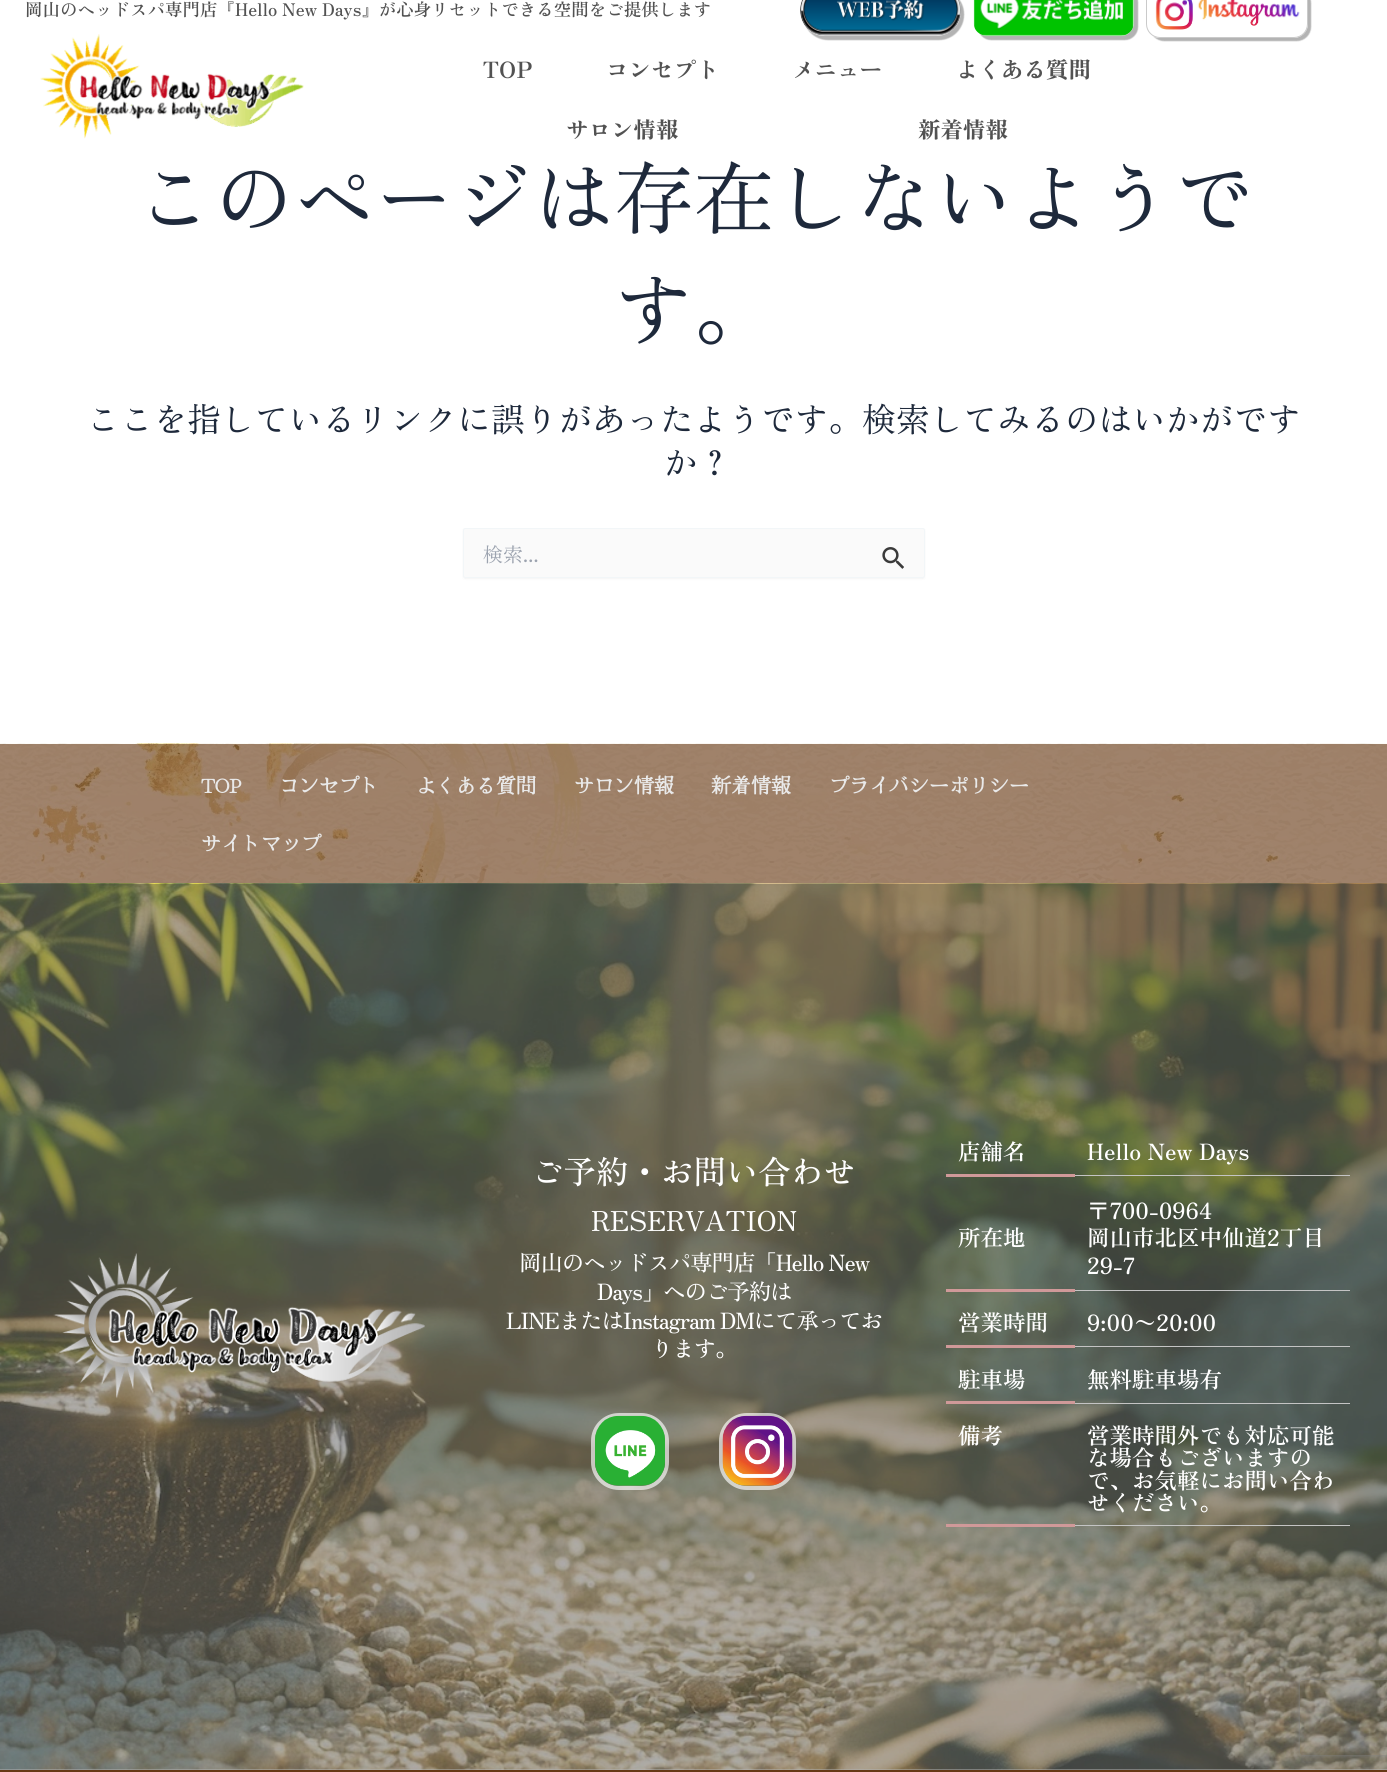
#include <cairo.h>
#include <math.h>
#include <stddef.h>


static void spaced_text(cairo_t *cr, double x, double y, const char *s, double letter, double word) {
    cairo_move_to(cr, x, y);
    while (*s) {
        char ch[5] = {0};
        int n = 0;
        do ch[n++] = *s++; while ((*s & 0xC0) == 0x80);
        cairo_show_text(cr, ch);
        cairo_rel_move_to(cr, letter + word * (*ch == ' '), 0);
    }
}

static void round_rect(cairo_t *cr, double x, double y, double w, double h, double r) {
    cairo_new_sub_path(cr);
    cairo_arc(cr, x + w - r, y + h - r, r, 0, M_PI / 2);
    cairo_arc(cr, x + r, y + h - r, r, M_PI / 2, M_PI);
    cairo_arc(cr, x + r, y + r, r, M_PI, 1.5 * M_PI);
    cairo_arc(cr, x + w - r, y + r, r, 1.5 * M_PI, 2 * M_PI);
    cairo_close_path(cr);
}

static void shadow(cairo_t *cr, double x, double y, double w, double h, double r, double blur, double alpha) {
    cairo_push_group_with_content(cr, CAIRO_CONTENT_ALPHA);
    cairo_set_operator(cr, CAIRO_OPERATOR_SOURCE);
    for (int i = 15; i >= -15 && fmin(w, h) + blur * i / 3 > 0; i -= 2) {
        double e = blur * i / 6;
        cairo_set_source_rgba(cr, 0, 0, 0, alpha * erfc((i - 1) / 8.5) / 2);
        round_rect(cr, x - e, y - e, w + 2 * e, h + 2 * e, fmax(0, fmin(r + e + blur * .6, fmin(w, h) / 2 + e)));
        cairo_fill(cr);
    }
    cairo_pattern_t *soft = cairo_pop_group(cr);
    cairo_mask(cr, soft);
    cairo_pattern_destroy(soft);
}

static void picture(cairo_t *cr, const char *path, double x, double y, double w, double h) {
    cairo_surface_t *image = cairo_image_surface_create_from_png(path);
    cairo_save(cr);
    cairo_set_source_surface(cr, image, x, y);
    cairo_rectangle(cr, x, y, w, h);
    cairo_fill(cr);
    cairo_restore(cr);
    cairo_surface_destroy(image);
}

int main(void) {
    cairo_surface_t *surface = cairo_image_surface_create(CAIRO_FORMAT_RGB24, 1387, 1772);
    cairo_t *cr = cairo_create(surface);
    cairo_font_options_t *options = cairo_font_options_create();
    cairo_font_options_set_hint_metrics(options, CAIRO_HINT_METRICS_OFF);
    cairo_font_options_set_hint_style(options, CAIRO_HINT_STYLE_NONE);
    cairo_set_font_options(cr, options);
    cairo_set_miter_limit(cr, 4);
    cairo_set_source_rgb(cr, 1, 1, 1);
    cairo_paint(cr);
    cairo_set_source_rgb(cr, 0.698, 0.698, 0.698);
    cairo_rectangle(cr, 0, 1769, 1387, 1);
    cairo_fill(cr);
    cairo_select_font_face(cr, "Zen Old Mincho SemiBold", CAIRO_FONT_SLANT_NORMAL, CAIRO_FONT_WEIGHT_NORMAL);
    cairo_set_font_size(cr, 17.5);
    cairo_set_source_rgb(cr, 0.322, 0.322, 0.322);
    cairo_move_to(cr, 25, 16);
    cairo_show_text(cr, "岡山のヘッドスパ専門店『Hello New Days』が心身リセットできる空間をご提供します");
    cairo_save(cr);
    cairo_set_fill_rule(cr, CAIRO_FILL_RULE_EVEN_ODD);
    cairo_new_path(cr);
    cairo_move_to(cr, 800, 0);
    cairo_line_to(cr, 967, 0);
    cairo_line_to(cr, 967, 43);
    cairo_line_to(cr, 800, 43);
    cairo_close_path(cr);
    cairo_move_to(cr, 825, -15);
    cairo_line_to(cr, 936, -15);
    cairo_curve_to(cr, 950, -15, 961, -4, 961, 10);
    cairo_line_to(cr, 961, 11);
    cairo_curve_to(cr, 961, 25, 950, 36, 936, 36);
    cairo_line_to(cr, 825, 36);
    cairo_curve_to(cr, 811, 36, 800, 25, 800, 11);
    cairo_line_to(cr, 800, 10);
    cairo_curve_to(cr, 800, -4, 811, -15, 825, -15);
    cairo_close_path(cr);
    cairo_clip(cr);
    cairo_set_source_rgb(cr, 0, 0, 0);
    shadow(cr, 803, -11, 161, 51, 25, 0.5, 0.3);
    cairo_restore(cr);
    picture(cr, "img1.png", 800, 0, 162, 36);
    cairo_save(cr);
    cairo_set_fill_rule(cr, CAIRO_FILL_RULE_EVEN_ODD);
    cairo_new_path(cr);
    cairo_move_to(cr, 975, 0);
    cairo_line_to(cr, 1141, 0);
    cairo_line_to(cr, 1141, 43);
    cairo_line_to(cr, 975, 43);
    cairo_close_path(cr);
    cairo_move_to(cr, 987, -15);
    cairo_line_to(cr, 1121, -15);
    cairo_curve_to(cr, 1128, -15, 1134, -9, 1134, -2);
    cairo_line_to(cr, 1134, 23);
    cairo_curve_to(cr, 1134, 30, 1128, 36, 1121, 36);
    cairo_line_to(cr, 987, 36);
    cairo_curve_to(cr, 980, 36, 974, 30, 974, 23);
    cairo_line_to(cr, 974, -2);
    cairo_curve_to(cr, 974, -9, 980, -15, 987, -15);
    cairo_close_path(cr);
    cairo_clip(cr);
    cairo_set_source_rgb(cr, 0, 0, 0);
    shadow(cr, 978, -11, 160, 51, 13, 0.5, 0.3);
    cairo_restore(cr);
    picture(cr, "img2.png", 973, 0, 161, 36);
    cairo_save(cr);
    cairo_set_fill_rule(cr, CAIRO_FILL_RULE_EVEN_ODD);
    cairo_new_path(cr);
    cairo_move_to(cr, 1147, 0);
    cairo_line_to(cr, 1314, 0);
    cairo_line_to(cr, 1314, 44);
    cairo_line_to(cr, 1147, 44);
    cairo_close_path(cr);
    cairo_move_to(cr, 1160, -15);
    cairo_line_to(cr, 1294, -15);
    cairo_curve_to(cr, 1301.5, -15, 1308, -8.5, 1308, -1);
    cairo_line_to(cr, 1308, 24);
    cairo_curve_to(cr, 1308, 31.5, 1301.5, 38, 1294, 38);
    cairo_line_to(cr, 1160, 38);
    cairo_curve_to(cr, 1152.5, 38, 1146, 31.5, 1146, 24);
    cairo_line_to(cr, 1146, -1);
    cairo_curve_to(cr, 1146, -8.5, 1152.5, -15, 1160, -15);
    cairo_close_path(cr);
    cairo_clip(cr);
    cairo_set_source_rgb(cr, 0, 0, 0);
    shadow(cr, 1150, -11, 161, 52, 14, 0.5, 0.3);
    cairo_restore(cr);
    round_rect(cr, 1146.5, -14.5, 161, 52, 13.5);
    cairo_set_source_rgb(cr, 0.792, 0.792, 0.792);
    cairo_set_line_width(cr, 1);
    cairo_stroke(cr);
    picture(cr, "img3.png", 1155, 0, 145, 30);
    picture(cr, "img4.png", 40, 34, 264, 105);
    cairo_select_font_face(cr, "Zen Old Mincho Black", CAIRO_FONT_SLANT_NORMAL, CAIRO_FONT_WEIGHT_NORMAL);
    cairo_set_font_size(cr, 22.5);
    cairo_set_source_rgb(cr, 0.322, 0.322, 0.322);
    cairo_move_to(cr, 483, 78);
    cairo_show_text(cr, "TOP");
    cairo_move_to(cr, 606, 78);
    cairo_show_text(cr, "コンセプト");
    cairo_move_to(cr, 792, 78);
    cairo_show_text(cr, "メニュー");
    cairo_move_to(cr, 956, 78);
    cairo_show_text(cr, "よくある質問");
    cairo_move_to(cr, 566, 138);
    cairo_show_text(cr, "サロン情報");
    cairo_move_to(cr, 918, 138);
    cairo_show_text(cr, "新着情報");
    cairo_select_font_face(cr, "Zen Old Mincho", CAIRO_FONT_SLANT_NORMAL, CAIRO_FONT_WEIGHT_NORMAL);
    cairo_set_font_size(cr, 80);
    cairo_set_source_rgb(cr, 0.118, 0.161, 0.231);
    cairo_move_to(cr, 134, 228);
    cairo_show_text(cr, "このページは存在しないようで");
    cairo_move_to(cr, 614, 340);
    cairo_show_text(cr, "す。");
    cairo_set_font_size(cr, 33.75);
    cairo_move_to(cr, 86, 432);
    cairo_show_text(cr, "ここを指しているリンクに誤りがあったようです。検索してみるのはいかがです");
    cairo_move_to(cr, 664, 475);
    cairo_show_text(cr, "か ?");
    cairo_set_source_rgb(cr, 0, 0, 0);
    shadow(cr, 463, 529, 462, 50, 2.5, 1, 0.05);
    cairo_set_source_rgb(cr, 0.98, 0.98, 0.98);
    round_rect(cr, 463.5, 528.5, 461, 49, 2);
    cairo_fill_preserve(cr);
    cairo_set_source_rgb(cr, 0.949, 0.961, 0.969);
    cairo_stroke(cr);
    cairo_set_font_size(cr, 20);
    cairo_set_source_rgb(cr, 0.612, 0.639, 0.686);
    cairo_move_to(cr, 483, 562);
    cairo_show_text(cr, "検索...");
    picture(cr, "img5.png", 882, 547, 22, 22);
    picture(cr, "img6.png", 0, 743, 1387, 141);
    cairo_select_font_face(cr, "Hina Mincho", CAIRO_FONT_SLANT_NORMAL, CAIRO_FONT_WEIGHT_BOLD);
    cairo_set_source_rgb(cr, 0.914, 0.914, 0.914);
    cairo_move_to(cr, 201, 793);
    cairo_show_text(cr, "TOP");
    cairo_move_to(cr, 279, 793);
    cairo_show_text(cr, "コンセプト");
    cairo_move_to(cr, 416, 793);
    cairo_show_text(cr, "よくある質問");
    cairo_move_to(cr, 574, 793);
    cairo_show_text(cr, "サロン情報");
    cairo_move_to(cr, 711, 793);
    cairo_show_text(cr, "新着情報");
    cairo_move_to(cr, 829, 793);
    cairo_show_text(cr, "プライバシーポリシー");
    cairo_move_to(cr, 201, 851);
    cairo_show_text(cr, "サイトマップ");
    picture(cr, "img7.png", 0, 883, 1387, 887);
    picture(cr, "img8.png", 53, 1253, 372, 146);
    cairo_select_font_face(cr, "Zen Old Mincho Medium", CAIRO_FONT_SLANT_NORMAL, CAIRO_FONT_WEIGHT_NORMAL);
    cairo_set_font_size(cr, 32.5);
    cairo_set_source_rgb(cr, 1, 1, 1);
    cairo_move_to(cr, 531, 1184);
    cairo_show_text(cr, "ご予約・お問い合わせ");
    cairo_select_font_face(cr, "Zen Old Mincho", CAIRO_FONT_SLANT_NORMAL, CAIRO_FONT_WEIGHT_NORMAL);
    cairo_set_font_size(cr, 27.5);
    cairo_move_to(cr, 591, 1231);
    cairo_show_text(cr, "RESERVATION");
    cairo_select_font_face(cr, "Zen Old Mincho Medium", CAIRO_FONT_SLANT_NORMAL, CAIRO_FONT_WEIGHT_NORMAL);
    cairo_set_font_size(cr, 22.5);
    spaced_text(cr, 519, 1271, "岡山のヘッドスパ専門店「Hello New", -1.1, 0);
    spaced_text(cr, 597, 1300, "Days」へのご予約は", -1.1, 0);
    spaced_text(cr, 506, 1329, "LINEまたはInstagram DMにて承ってお", -1.1, 0);
    spaced_text(cr, 651, 1357, "ります。", -1.1, 0);
    round_rect(cr, 593, 1415, 74, 73, 26);
    cairo_set_source_rgba(cr, 1, 1, 1, 0.65);
    cairo_set_line_width(cr, 4);
    cairo_stroke(cr);
    picture(cr, "img9.png", 595, 1415, 70, 71);
    round_rect(cr, 721, 1415, 73, 73, 26);
    cairo_stroke(cr);
    picture(cr, "img10.png", 722, 1415, 71, 71);
    cairo_set_source_rgb(cr, 0.816, 0.6, 0.6);
    cairo_rectangle(cr, 946, 1174, 129, 3);
    cairo_fill(cr);
    cairo_select_font_face(cr, "Zen Old Mincho SemiBold", CAIRO_FONT_SLANT_NORMAL, CAIRO_FONT_WEIGHT_NORMAL);
    cairo_set_source_rgb(cr, 1, 1, 1);
    cairo_move_to(cr, 958, 1160);
    cairo_show_text(cr, "店舗名");
    cairo_set_source_rgb(cr, 0.769, 0.769, 0.769);
    cairo_rectangle(cr, 1075, 1175, 275, 1);
    cairo_fill(cr);
    cairo_set_source_rgb(cr, 1, 1, 1);
    cairo_move_to(cr, 1087, 1160);
    cairo_show_text(cr, "Hello New Days");
    cairo_set_source_rgb(cr, 0.816, 0.6, 0.6);
    cairo_rectangle(cr, 946, 1289, 129, 3);
    cairo_fill(cr);
    cairo_set_source_rgb(cr, 1, 1, 1);
    cairo_move_to(cr, 958, 1246);
    cairo_show_text(cr, "所在地");
    cairo_set_source_rgb(cr, 0.769, 0.769, 0.769);
    cairo_rectangle(cr, 1075, 1290, 275, 1);
    cairo_fill(cr);
    cairo_set_source_rgb(cr, 1, 1, 1);
    cairo_move_to(cr, 1087, 1219);
    cairo_show_text(cr, "〒700-0964");
    cairo_move_to(cr, 1087, 1246);
    cairo_show_text(cr, "岡山市北区中仙道2丁目");
    cairo_move_to(cr, 1087, 1274);
    cairo_show_text(cr, "29-7");
    cairo_set_source_rgb(cr, 0.816, 0.6, 0.6);
    cairo_rectangle(cr, 946, 1345, 129, 3);
    cairo_fill(cr);
    cairo_set_source_rgb(cr, 1, 1, 1);
    cairo_move_to(cr, 958, 1331);
    cairo_show_text(cr, "営業時間");
    cairo_set_source_rgb(cr, 0.769, 0.769, 0.769);
    cairo_rectangle(cr, 1075, 1346, 275, 1);
    cairo_fill(cr);
    cairo_set_source_rgb(cr, 1, 1, 1);
    cairo_move_to(cr, 1087, 1331);
    cairo_show_text(cr, "9:00〜20:00");
    cairo_set_source_rgb(cr, 0.816, 0.6, 0.6);
    cairo_rectangle(cr, 946, 1401, 129, 3);
    cairo_fill(cr);
    cairo_set_source_rgb(cr, 1, 1, 1);
    cairo_move_to(cr, 958, 1388);
    cairo_show_text(cr, "駐車場");
    cairo_set_source_rgb(cr, 0.769, 0.769, 0.769);
    cairo_rectangle(cr, 1075, 1403, 275, 1);
    cairo_fill(cr);
    cairo_set_source_rgb(cr, 1, 1, 1);
    cairo_move_to(cr, 1087, 1388);
    cairo_show_text(cr, "無料駐車場有");
    cairo_set_source_rgb(cr, 0.816, 0.6, 0.6);
    cairo_rectangle(cr, 946, 1524, 129, 3);
    cairo_fill(cr);
    cairo_set_source_rgb(cr, 1, 1, 1);
    cairo_move_to(cr, 958, 1444);
    cairo_show_text(cr, "備考");
    cairo_set_source_rgb(cr, 0.769, 0.769, 0.769);
    cairo_rectangle(cr, 1075, 1525, 275, 1);
    cairo_fill(cr);
    cairo_set_source_rgb(cr, 1, 1, 1);
    cairo_move_to(cr, 1087, 1444);
    cairo_show_text(cr, "営業時間外でも対応可能");
    cairo_move_to(cr, 1087, 1466);
    cairo_show_text(cr, "な場合もございますの");
    cairo_move_to(cr, 1087, 1489);
    cairo_show_text(cr, "で、お気軽にお問い合わ");
    cairo_move_to(cr, 1087, 1511);
    cairo_show_text(cr, "せください。");
    cairo_set_source_rgb(cr, 0.4, 0.22, 0.082);
    cairo_rectangle(cr, 0, 1770, 1387, 2);
    cairo_fill(cr);
    cairo_save(cr);
    cairo_set_fill_rule(cr, CAIRO_FILL_RULE_EVEN_ODD);
    cairo_new_path(cr);
    cairo_move_to(cr, 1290, 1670);
    cairo_line_to(cr, 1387, 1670);
    cairo_line_to(cr, 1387, 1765);
    cairo_line_to(cr, 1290, 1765);
    cairo_close_path(cr);
    cairo_move_to(cr, 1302.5, 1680);
    cairo_line_to(cr, 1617.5, 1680);
    cairo_curve_to(cr, 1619, 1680, 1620, 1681, 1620, 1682.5);
    cairo_line_to(cr, 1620, 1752.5);
    cairo_curve_to(cr, 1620, 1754, 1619, 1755, 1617.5, 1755);
    cairo_line_to(cr, 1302.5, 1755);
    cairo_curve_to(cr, 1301, 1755, 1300, 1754, 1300, 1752.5);
    cairo_line_to(cr, 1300, 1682.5);
    cairo_curve_to(cr, 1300, 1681, 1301, 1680, 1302.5, 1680);
    cairo_close_path(cr);
    cairo_clip(cr);
    cairo_set_source_rgb(cr, 0.502, 0.502, 0.502);
    shadow(cr, 1300, 1680, 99, 75, 2.5, 3, 1);
    cairo_restore(cr);
    cairo_surface_write_to_png(surface, "page.png");
    cairo_font_options_destroy(options);
    cairo_destroy(cr);
    cairo_surface_destroy(surface);
    return 0;
}
